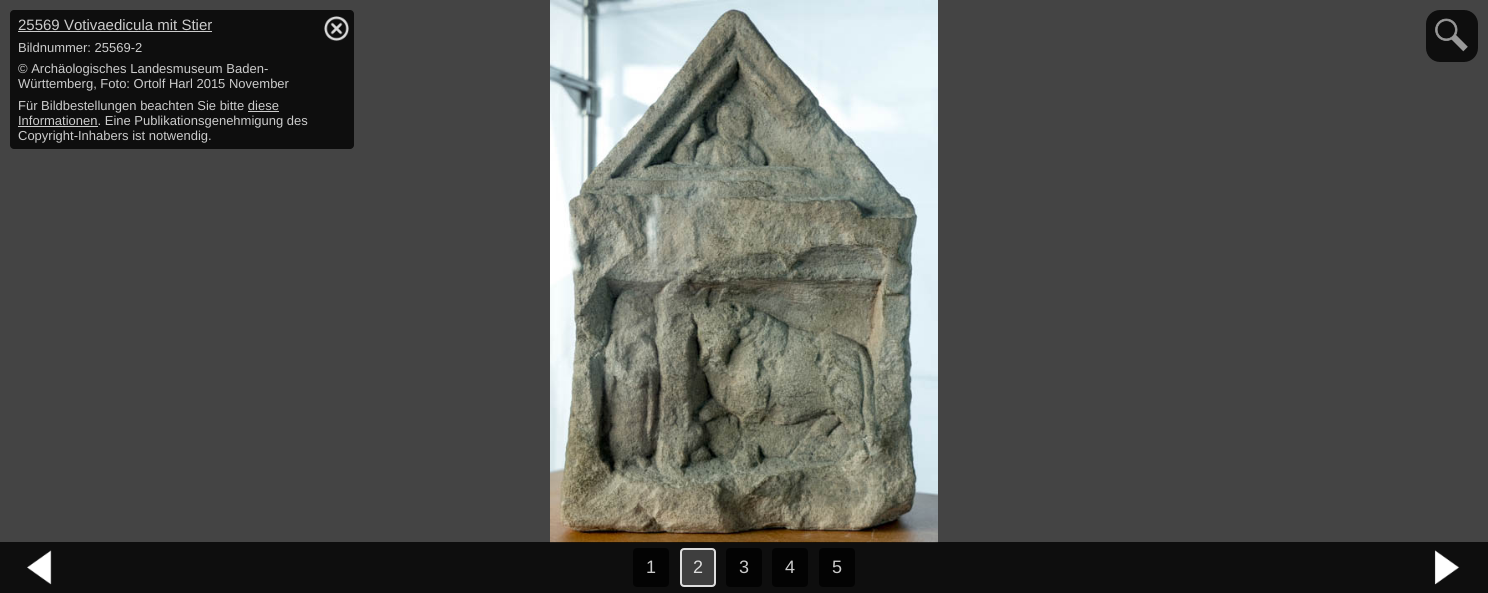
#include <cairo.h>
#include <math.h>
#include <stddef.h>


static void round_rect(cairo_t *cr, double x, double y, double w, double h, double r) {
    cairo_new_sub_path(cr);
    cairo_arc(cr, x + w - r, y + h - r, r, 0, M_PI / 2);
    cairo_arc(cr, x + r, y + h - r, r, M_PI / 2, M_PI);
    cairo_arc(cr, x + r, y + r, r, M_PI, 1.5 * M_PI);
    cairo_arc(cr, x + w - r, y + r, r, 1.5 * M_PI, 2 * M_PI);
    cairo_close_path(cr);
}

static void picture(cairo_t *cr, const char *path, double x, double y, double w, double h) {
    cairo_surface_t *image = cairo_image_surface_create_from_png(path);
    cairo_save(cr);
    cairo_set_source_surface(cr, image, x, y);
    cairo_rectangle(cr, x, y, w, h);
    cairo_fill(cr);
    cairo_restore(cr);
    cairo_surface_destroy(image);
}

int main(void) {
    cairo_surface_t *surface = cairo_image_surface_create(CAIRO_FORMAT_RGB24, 1488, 593);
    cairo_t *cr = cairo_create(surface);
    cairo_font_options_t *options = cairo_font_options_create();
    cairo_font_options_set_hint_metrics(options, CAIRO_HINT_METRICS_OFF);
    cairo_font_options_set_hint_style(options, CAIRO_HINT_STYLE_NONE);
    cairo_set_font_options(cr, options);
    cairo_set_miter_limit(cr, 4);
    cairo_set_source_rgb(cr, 0.267, 0.267, 0.267);
    cairo_paint(cr);
    cairo_set_source_rgb(cr, 0.055, 0.055, 0.055);
    round_rect(cr, 10, 10, 344, 139, 4);
    cairo_fill(cr);
    cairo_select_font_face(cr, "Liberation Sans", CAIRO_FONT_SLANT_NORMAL, CAIRO_FONT_WEIGHT_NORMAL);
    cairo_set_font_size(cr, 15);
    cairo_set_source_rgb(cr, 0.8, 0.8, 0.8);
    cairo_move_to(cr, 18, 30);
    cairo_show_text(cr, "25569 Votivaedicula mit Stier");
    cairo_rectangle(cr, 18, 31, 194, 1);
    cairo_fill(cr);
    picture(cr, "img1.png", 324, 16, 25, 25);
    cairo_set_font_size(cr, 13);
    cairo_move_to(cr, 18, 52);
    cairo_show_text(cr, "Bildnummer: 25569-2");
    cairo_move_to(cr, 18, 73);
    cairo_show_text(cr, "© Archäologisches Landesmuseum Baden-");
    cairo_move_to(cr, 18, 88);
    cairo_show_text(cr, "Württemberg, Foto: Ortolf Harl 2015 November");
    cairo_move_to(cr, 18, 110);
    cairo_show_text(cr, "Für Bildbestellungen beachten Sie bitte diese");
    cairo_rectangle(cr, 18, 126, 80, 1);
    cairo_fill(cr);
    cairo_move_to(cr, 18, 125);
    cairo_show_text(cr, "Informationen. Eine Publikationsgenehmigung des");
    cairo_rectangle(cr, 248, 111, 31, 1);
    cairo_fill(cr);
    cairo_move_to(cr, 18, 140);
    cairo_show_text(cr, "Copyright-Inhabers ist notwendig.");
    picture(cr, "img2.png", 550, 0, 388, 543);
    cairo_set_source_rgb(cr, 0.055, 0.055, 0.055);
    round_rect(cr, 1426, 10, 52, 52, 14);
    cairo_fill(cr);
    picture(cr, "img3.png", 1435, 18, 33, 34);
    cairo_set_source_rgba(cr, 0, 0, 0, 0.8);
    cairo_rectangle(cr, 0, 542, 1488, 51);
    cairo_fill(cr);
    picture(cr, "img4.png", 27, 550, 25, 35);
    picture(cr, "img5.png", 1434, 550, 26, 35);
    cairo_set_source_rgb(cr, 0.012, 0.012, 0.012);
    round_rect(cr, 633, 548, 36, 39, 4);
    cairo_fill(cr);
    cairo_set_font_size(cr, 18);
    cairo_set_source_rgb(cr, 0.8, 0.8, 0.8);
    cairo_move_to(cr, 646, 573);
    cairo_show_text(cr, "1");
    cairo_set_source_rgb(cr, 0.243, 0.243, 0.243);
    round_rect(cr, 681, 549, 34, 37, 3);
    cairo_fill_preserve(cr);
    cairo_set_source_rgb(cr, 0.867, 0.867, 0.867);
    cairo_stroke(cr);
    cairo_move_to(cr, 693, 573);
    cairo_show_text(cr, "2");
    cairo_set_source_rgb(cr, 0.012, 0.012, 0.012);
    round_rect(cr, 726, 548, 36, 39, 4);
    cairo_fill(cr);
    cairo_set_source_rgb(cr, 0.8, 0.8, 0.8);
    cairo_move_to(cr, 739, 573);
    cairo_show_text(cr, "3");
    cairo_set_source_rgb(cr, 0.012, 0.012, 0.012);
    round_rect(cr, 772, 548, 36, 39, 4);
    cairo_fill(cr);
    cairo_set_source_rgb(cr, 0.8, 0.8, 0.8);
    cairo_move_to(cr, 785, 573);
    cairo_show_text(cr, "4");
    cairo_set_source_rgb(cr, 0.012, 0.012, 0.012);
    round_rect(cr, 819, 548, 36, 39, 4);
    cairo_fill(cr);
    cairo_set_source_rgb(cr, 0.8, 0.8, 0.8);
    cairo_move_to(cr, 832, 573);
    cairo_show_text(cr, "5");
    cairo_surface_write_to_png(surface, "page.png");
    cairo_font_options_destroy(options);
    cairo_destroy(cr);
    cairo_surface_destroy(surface);
    return 0;
}
